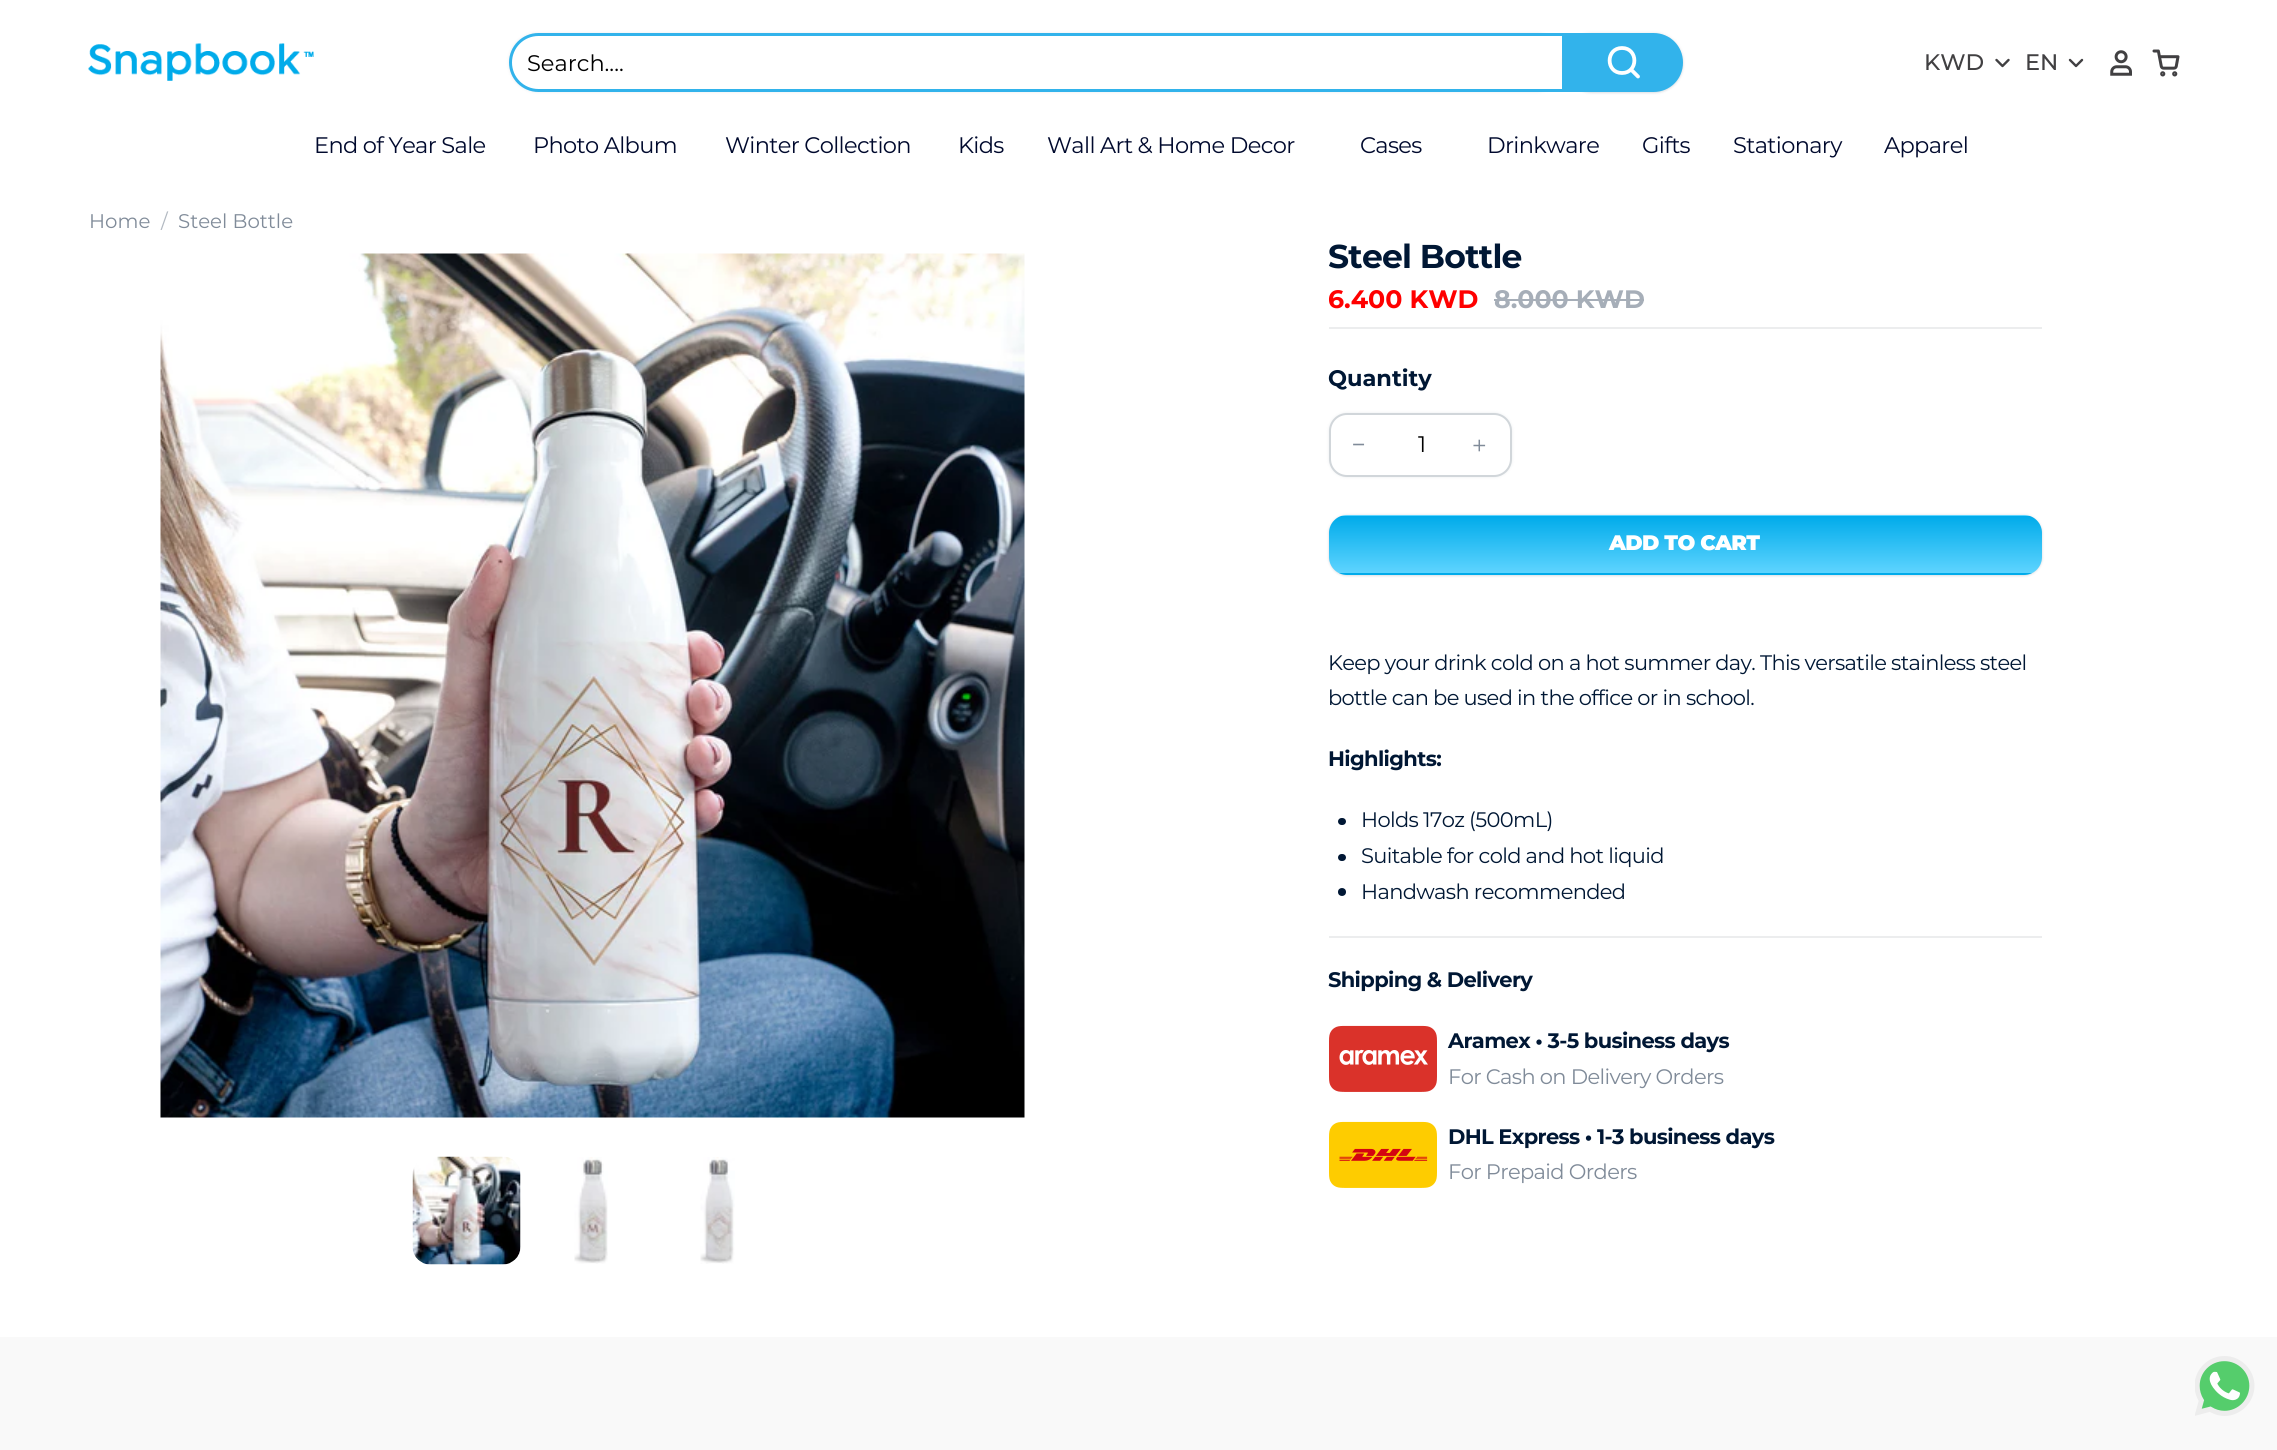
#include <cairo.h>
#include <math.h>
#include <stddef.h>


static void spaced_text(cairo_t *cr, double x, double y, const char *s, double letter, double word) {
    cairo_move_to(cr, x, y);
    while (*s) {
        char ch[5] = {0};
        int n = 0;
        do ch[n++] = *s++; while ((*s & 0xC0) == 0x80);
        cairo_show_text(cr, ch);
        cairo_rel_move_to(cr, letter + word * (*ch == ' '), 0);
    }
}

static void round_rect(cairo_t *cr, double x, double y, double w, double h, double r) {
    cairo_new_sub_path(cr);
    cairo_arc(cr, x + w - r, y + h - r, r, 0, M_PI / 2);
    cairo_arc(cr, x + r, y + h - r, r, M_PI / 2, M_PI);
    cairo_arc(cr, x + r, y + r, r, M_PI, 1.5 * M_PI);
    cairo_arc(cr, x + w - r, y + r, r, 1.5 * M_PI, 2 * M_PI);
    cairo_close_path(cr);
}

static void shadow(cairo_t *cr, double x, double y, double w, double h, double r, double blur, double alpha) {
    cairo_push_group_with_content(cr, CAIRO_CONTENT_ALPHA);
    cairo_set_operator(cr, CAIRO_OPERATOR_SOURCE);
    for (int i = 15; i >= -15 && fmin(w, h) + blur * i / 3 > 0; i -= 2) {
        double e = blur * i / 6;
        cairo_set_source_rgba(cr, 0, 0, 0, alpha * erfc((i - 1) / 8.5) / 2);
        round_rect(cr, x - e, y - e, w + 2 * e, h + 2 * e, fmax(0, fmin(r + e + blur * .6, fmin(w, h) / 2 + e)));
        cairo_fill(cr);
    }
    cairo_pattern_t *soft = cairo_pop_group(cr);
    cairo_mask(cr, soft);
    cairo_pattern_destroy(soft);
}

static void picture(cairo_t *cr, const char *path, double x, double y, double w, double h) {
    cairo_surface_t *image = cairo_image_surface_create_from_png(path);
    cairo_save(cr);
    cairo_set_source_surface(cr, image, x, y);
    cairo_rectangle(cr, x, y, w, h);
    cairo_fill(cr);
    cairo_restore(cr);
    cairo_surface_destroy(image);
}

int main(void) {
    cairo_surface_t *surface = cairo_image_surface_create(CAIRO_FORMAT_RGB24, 2277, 1450);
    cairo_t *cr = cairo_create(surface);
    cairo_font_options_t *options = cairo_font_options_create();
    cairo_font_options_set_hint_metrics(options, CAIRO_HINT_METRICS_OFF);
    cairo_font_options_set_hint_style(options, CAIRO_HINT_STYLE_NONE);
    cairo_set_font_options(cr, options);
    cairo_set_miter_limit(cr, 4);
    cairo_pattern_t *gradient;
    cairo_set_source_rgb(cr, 1, 1, 1);
    cairo_paint(cr);
    picture(cr, "img1.png", 88, 43, 226, 38);
    cairo_set_source_rgb(cr, 0.573, 0.624, 0.667);
    shadow(cr, 509, 33, 1056, 59, 29.5, 1.5, 0.2);
    cairo_set_source_rgb(cr, 1, 1, 1);
    cairo_new_path(cr);
    cairo_move_to(cr, 538.5, 34.5);
    cairo_line_to(cr, 1563.5, 34.5);
    cairo_line_to(cr, 1563.5, 90.5);
    cairo_line_to(cr, 538.5, 90.5);
    cairo_curve_to(cr, 523, 90.5, 510.5, 78, 510.5, 62.5);
    cairo_curve_to(cr, 510.5, 47, 523, 34.5, 538.5, 34.5);
    cairo_close_path(cr);
    cairo_fill_preserve(cr);
    cairo_set_source_rgb(cr, 0.196, 0.702, 0.918);
    cairo_set_line_width(cr, 3);
    cairo_stroke(cr);
    cairo_select_font_face(cr, "Montserrat", CAIRO_FONT_SLANT_NORMAL, CAIRO_FONT_WEIGHT_NORMAL);
    cairo_set_font_size(cr, 22.5);
    cairo_set_source_rgb(cr, 0, 0, 0);
    cairo_move_to(cr, 527, 71);
    cairo_show_text(cr, "Search....");
    cairo_set_source_rgb(cr, 0.573, 0.624, 0.667);
    shadow(cr, 1563, 33, 120, 59, 29.5, 1.5, 0.25);
    shadow(cr, 1563, 35, 120, 58, 29, 1, 0.2);
    cairo_set_source_rgb(cr, 0.196, 0.702, 0.918);
    cairo_new_path(cr);
    cairo_move_to(cr, 1563, 33);
    cairo_line_to(cr, 1653.5, 33);
    cairo_curve_to(cr, 1670, 33, 1683, 46, 1683, 62.5);
    cairo_curve_to(cr, 1683, 79, 1670, 92, 1653.5, 92);
    cairo_line_to(cr, 1563, 92);
    cairo_close_path(cr);
    cairo_fill(cr);
    cairo_new_path(cr);
    cairo_move_to(cr, 1622, 48);
    cairo_curve_to(cr, 1605.5, 48, 1605.5, 73, 1622, 73);
    cairo_curve_to(cr, 1638.5, 73, 1638.5, 48, 1622, 48);
    cairo_close_path(cr);
    cairo_move_to(cr, 1638, 76.5);
    cairo_line_to(cr, 1631, 69.5);
    cairo_close_path(cr);
    cairo_set_source_rgb(cr, 1, 1, 1);
    cairo_set_line_width(cr, 3.8);
    cairo_set_line_cap(cr, CAIRO_LINE_CAP_ROUND);
    cairo_set_line_join(cr, CAIRO_LINE_JOIN_ROUND);
    cairo_stroke(cr);
    cairo_select_font_face(cr, "Montserrat Medium", CAIRO_FONT_SLANT_NORMAL, CAIRO_FONT_WEIGHT_NORMAL);
    cairo_set_source_rgb(cr, 0.255, 0.251, 0.259);
    cairo_move_to(cr, 1924, 70);
    cairo_show_text(cr, "KWD");
    cairo_new_path(cr);
    cairo_move_to(cr, 1996.5, 60);
    cairo_line_to(cr, 2002.5, 66);
    cairo_line_to(cr, 2008.5, 60);
    cairo_set_line_width(cr, 2.4);
    cairo_stroke(cr);
    cairo_move_to(cr, 2025, 70);
    cairo_show_text(cr, "EN");
    cairo_new_path(cr);
    cairo_move_to(cr, 2070, 60);
    cairo_line_to(cr, 2076, 66);
    cairo_line_to(cr, 2082, 60);
    cairo_stroke(cr);
    picture(cr, "img2.png", 2110, 50, 22, 26);
    picture(cr, "img3.png", 2152, 49, 28, 28);
    cairo_select_font_face(cr, "Montserrat", CAIRO_FONT_SLANT_NORMAL, CAIRO_FONT_WEIGHT_NORMAL);
    cairo_set_source_rgb(cr, 0, 0.039, 0.176);
    spaced_text(cr, 314, 153, "End of Year Sale", -0.65, 0);
    spaced_text(cr, 533, 153, "Photo Album", -0.65, 0);
    spaced_text(cr, 725, 153, "Winter Collection", -0.65, 0);
    spaced_text(cr, 958, 153, "Kids", -0.65, 0);
    spaced_text(cr, 1047, 153, "Wall Art & Home Decor", -0.65, 0);
    spaced_text(cr, 1360, 153, "Cases", -0.65, 0);
    spaced_text(cr, 1487, 153, "Drinkware", -0.65, 0);
    spaced_text(cr, 1642, 153, "Gifts", -0.65, 0);
    spaced_text(cr, 1733, 153, "Stationary", -0.65, 0);
    spaced_text(cr, 1884, 153, "Apparel", -0.65, 0);
    cairo_set_font_size(cr, 19.75);
    cairo_set_source_rgb(cr, 0.502, 0.545, 0.6);
    cairo_move_to(cr, 89, 228);
    cairo_show_text(cr, "Home");
    cairo_set_source_rgb(cr, 0.698, 0.725, 0.757);
    cairo_move_to(cr, 161, 228);
    cairo_show_text(cr, "/");
    cairo_set_source_rgb(cr, 0.502, 0.545, 0.6);
    cairo_move_to(cr, 178, 228);
    cairo_show_text(cr, "Steel Bottle");
    picture(cr, "img4.png", 160, 253, 865, 865);
    picture(cr, "img5.png", 412, 1156, 109, 109);
    picture(cr, "img6.png", 574, 1157, 34, 107);
    picture(cr, "img7.png", 700, 1157, 35, 107);
    cairo_select_font_face(cr, "Montserrat", CAIRO_FONT_SLANT_NORMAL, CAIRO_FONT_WEIGHT_BOLD);
    cairo_set_font_size(cr, 33);
    cairo_set_source_rgb(cr, 0, 0.09, 0.204);
    spaced_text(cr, 1328, 268, "Steel Bottle", -0.75, 0);
    cairo_set_source_rgb(cr, 0.925, 0.929, 0.933);
    cairo_rectangle(cr, 1329, 327, 713, 2);
    cairo_fill(cr);
    cairo_set_font_size(cr, 25.25);
    cairo_set_source_rgb(cr, 1, 0, 0);
    cairo_move_to(cr, 1328, 308);
    cairo_show_text(cr, "6.400 KWD");
    cairo_set_source_rgb(cr, 0.651, 0.682, 0.722);
    cairo_move_to(cr, 1494, 308);
    cairo_show_text(cr, "8.000 KWD");
    cairo_rectangle(cr, 1494, 299, 150, 2);
    cairo_fill(cr);
    cairo_set_font_size(cr, 22.5);
    cairo_set_source_rgb(cr, 0, 0.09, 0.204);
    cairo_move_to(cr, 1328, 386);
    cairo_show_text(cr, "Quantity");
    cairo_set_source_rgb(cr, 0.573, 0.624, 0.667);
    shadow(cr, 1329, 413, 183, 64, 18, 1.5, 0.2);
    cairo_set_source_rgb(cr, 1, 1, 1);
    round_rect(cr, 1330, 414, 181, 62, 17);
    cairo_fill_preserve(cr);
    cairo_set_source_rgb(cr, 0.82, 0.839, 0.855);
    cairo_set_line_width(cr, 2);
    cairo_set_line_cap(cr, CAIRO_LINE_CAP_BUTT);
    cairo_set_line_join(cr, CAIRO_LINE_JOIN_MITER);
    cairo_stroke(cr);
    cairo_select_font_face(cr, "Liberation Sans", CAIRO_FONT_SLANT_NORMAL, CAIRO_FONT_WEIGHT_NORMAL);
    cairo_set_source_rgb(cr, 0.502, 0.545, 0.6);
    spaced_text(cr, 1352, 452, "−", 2, 0);
    cairo_select_font_face(cr, "Montserrat", CAIRO_FONT_SLANT_NORMAL, CAIRO_FONT_WEIGHT_NORMAL);
    cairo_set_source_rgb(cr, 0, 0, 0);
    cairo_move_to(cr, 1418, 452);
    cairo_show_text(cr, "1");
    cairo_select_font_face(cr, "WenQuanYi Zen Hei Medium", CAIRO_FONT_SLANT_NORMAL, CAIRO_FONT_WEIGHT_NORMAL);
    cairo_set_source_rgb(cr, 0.502, 0.545, 0.6);
    spaced_text(cr, 1468, 452, "＋", 2, 0);
    cairo_set_source_rgb(cr, 0.573, 0.624, 0.667);
    shadow(cr, 1329, 515, 713, 60, 18, 1.5, 0.25);
    shadow(cr, 1329, 516, 713, 60, 18, 1, 0.2);
    cairo_save(cr);
    round_rect(cr, 1329, 515, 713, 60, 18);
    cairo_clip(cr);
    gradient = cairo_pattern_create_linear(1685, 459, 1685, 516);
    cairo_pattern_add_color_stop_rgba(gradient, 0, 0, 0.671, 0.918, 1);
    cairo_pattern_add_color_stop_rgba(gradient, 1, 0.369, 0.831, 1, 1);
    cairo_set_source(cr, gradient);
    cairo_pattern_destroy(gradient);
    cairo_rectangle(cr, 1341, 515, 689, 1);
    cairo_fill(cr);
    gradient = cairo_pattern_create_linear(1685, 516, 1685, 573);
    cairo_pattern_add_color_stop_rgba(gradient, 0, 0, 0.671, 0.918, 1);
    cairo_pattern_add_color_stop_rgba(gradient, 1, 0.369, 0.831, 1, 1);
    cairo_set_source(cr, gradient);
    cairo_pattern_destroy(gradient);
    cairo_rectangle(cr, 1329, 516, 713, 57);
    cairo_fill(cr);
    gradient = cairo_pattern_create_linear(1685, 573, 1685, 630);
    cairo_pattern_add_color_stop_rgba(gradient, 0, 0, 0.671, 0.918, 1);
    cairo_pattern_add_color_stop_rgba(gradient, 1, 0.369, 0.831, 1, 1);
    cairo_set_source(cr, gradient);
    cairo_pattern_destroy(gradient);
    cairo_rectangle(cr, 1339, 573, 693, 2);
    cairo_fill(cr);
    cairo_restore(cr);
    cairo_select_font_face(cr, "Montserrat Black", CAIRO_FONT_SLANT_NORMAL, CAIRO_FONT_WEIGHT_NORMAL);
    cairo_set_font_size(cr, 21);
    cairo_set_source_rgb(cr, 1, 1, 1);
    spaced_text(cr, 1609, 550, "ADD TO CART", -0.65, 0);
    cairo_select_font_face(cr, "Montserrat", CAIRO_FONT_SLANT_NORMAL, CAIRO_FONT_WEIGHT_NORMAL);
    cairo_set_source_rgb(cr, 0, 0.09, 0.204);
    spaced_text(cr, 1328, 670, "Keep your drink cold on a hot summer day. This versatile stainless steel", -0.65, 0);
    spaced_text(cr, 1328, 705, "bottle can be used in the office or in school.", -0.65, 0);
    cairo_select_font_face(cr, "Montserrat", CAIRO_FONT_SLANT_NORMAL, CAIRO_FONT_WEIGHT_BOLD);
    spaced_text(cr, 1328, 766, "Highlights:", -0.65, 0);
    round_rect(cr, 1338, 818, 8, 7, 3.5);
    cairo_fill(cr);
    cairo_select_font_face(cr, "Montserrat", CAIRO_FONT_SLANT_NORMAL, CAIRO_FONT_WEIGHT_NORMAL);
    spaced_text(cr, 1361, 827, "Holds 17oz (500mL)", -0.65, 0);
    round_rect(cr, 1338, 854, 8, 7, 3.5);
    cairo_fill(cr);
    spaced_text(cr, 1361, 863, "Suitable for cold and hot liquid", -0.65, 0);
    cairo_new_path(cr);
    cairo_arc(cr, 1342, 892, 4, 0, 2 * M_PI);
    cairo_fill(cr);
    spaced_text(cr, 1361, 899, "Handwash recommended", -0.65, 0);
    cairo_set_source_rgb(cr, 0.925, 0.929, 0.933);
    cairo_rectangle(cr, 1329, 936, 713, 2);
    cairo_fill(cr);
    cairo_select_font_face(cr, "Montserrat", CAIRO_FONT_SLANT_NORMAL, CAIRO_FONT_WEIGHT_BOLD);
    cairo_set_source_rgb(cr, 0, 0.09, 0.204);
    spaced_text(cr, 1328, 987, "Shipping & Delivery", -0.65, 0);
    picture(cr, "img8.png", 1329, 1025, 108, 67);
    spaced_text(cr, 1448, 1048, "Aramex • 3-5 business days", -0.65, 0);
    cairo_select_font_face(cr, "Montserrat", CAIRO_FONT_SLANT_NORMAL, CAIRO_FONT_WEIGHT_NORMAL);
    cairo_set_source_rgb(cr, 0.502, 0.545, 0.6);
    spaced_text(cr, 1448, 1084, "For Cash on Delivery Orders", -0.65, 0);
    picture(cr, "img9.png", 1329, 1121, 108, 67);
    cairo_select_font_face(cr, "Montserrat", CAIRO_FONT_SLANT_NORMAL, CAIRO_FONT_WEIGHT_BOLD);
    cairo_set_source_rgb(cr, 0, 0.09, 0.204);
    spaced_text(cr, 1448, 1144, "DHL Express • 1-3 business days", -0.65, 0);
    cairo_select_font_face(cr, "Montserrat", CAIRO_FONT_SLANT_NORMAL, CAIRO_FONT_WEIGHT_NORMAL);
    cairo_set_source_rgb(cr, 0.502, 0.545, 0.6);
    spaced_text(cr, 1448, 1179, "For Prepaid Orders", -0.65, 0);
    cairo_set_source_rgb(cr, 0.976, 0.976, 0.976);
    cairo_rectangle(cr, 0, 1337, 2277, 113);
    cairo_fill(cr);
    picture(cr, "img10.png", 2195, 1356, 60, 60);
    cairo_surface_write_to_png(surface, "page.png");
    cairo_font_options_destroy(options);
    cairo_destroy(cr);
    cairo_surface_destroy(surface);
    return 0;
}
